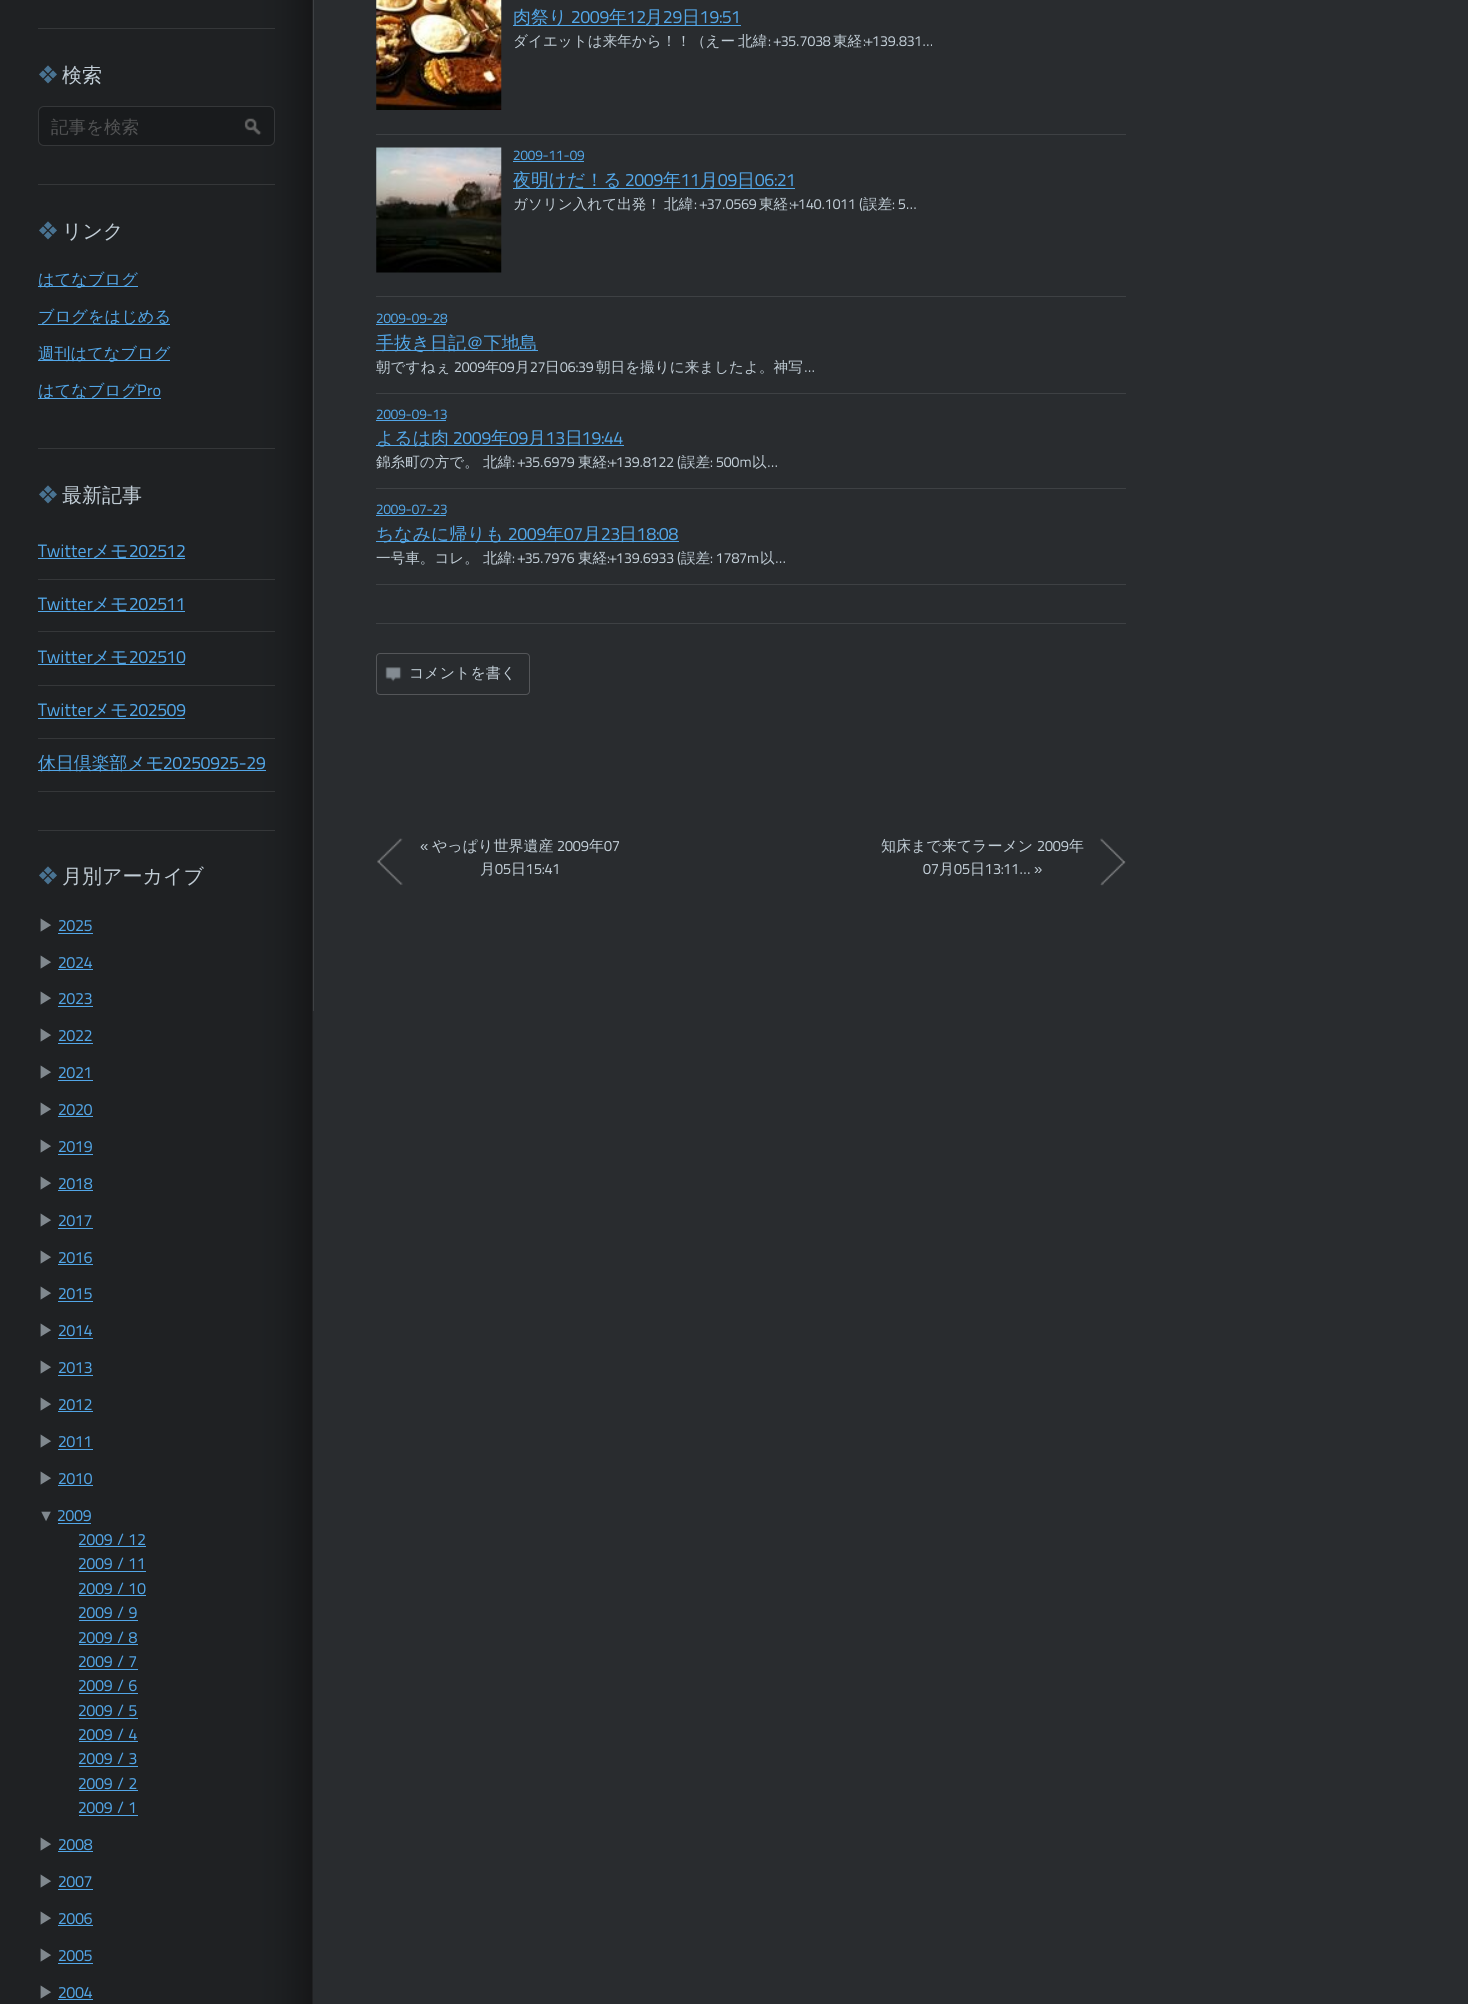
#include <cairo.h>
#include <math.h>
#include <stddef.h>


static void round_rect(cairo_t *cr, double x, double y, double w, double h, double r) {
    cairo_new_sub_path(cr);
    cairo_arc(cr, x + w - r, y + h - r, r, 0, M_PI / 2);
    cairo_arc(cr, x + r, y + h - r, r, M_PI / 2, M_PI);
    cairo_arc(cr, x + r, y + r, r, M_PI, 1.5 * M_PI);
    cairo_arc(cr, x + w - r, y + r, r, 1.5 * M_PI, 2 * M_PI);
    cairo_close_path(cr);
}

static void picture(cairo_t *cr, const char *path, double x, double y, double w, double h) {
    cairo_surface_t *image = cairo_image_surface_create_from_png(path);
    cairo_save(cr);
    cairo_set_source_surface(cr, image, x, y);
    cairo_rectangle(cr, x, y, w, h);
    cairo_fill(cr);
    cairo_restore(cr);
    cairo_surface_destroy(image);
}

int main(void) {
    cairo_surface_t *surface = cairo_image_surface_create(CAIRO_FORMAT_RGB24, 1468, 2004);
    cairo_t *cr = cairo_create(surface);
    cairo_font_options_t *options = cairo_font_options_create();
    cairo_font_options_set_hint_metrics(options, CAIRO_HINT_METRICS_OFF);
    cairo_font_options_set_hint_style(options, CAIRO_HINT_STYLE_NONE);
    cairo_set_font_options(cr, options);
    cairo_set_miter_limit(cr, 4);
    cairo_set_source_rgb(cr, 0.161, 0.173, 0.184);
    cairo_paint(cr);
    picture(cr, "img1.png", 0, 0, 313, 2004);
    cairo_set_source_rgb(cr, 0.208, 0.216, 0.224);
    cairo_rectangle(cr, 38, 28, 237, 1);
    cairo_fill(cr);
    cairo_rectangle(cr, 38, 184, 237, 1);
    cairo_fill(cr);
    cairo_select_font_face(cr, "IPAPGothic", CAIRO_FONT_SLANT_NORMAL, CAIRO_FONT_WEIGHT_NORMAL);
    cairo_set_font_size(cr, 20);
    cairo_set_source_rgb(cr, 0.286, 0.451, 0.573);
    cairo_move_to(cr, 38, 82);
    cairo_show_text(cr, "❖");
    cairo_select_font_face(cr, "WenQuanYi Zen Hei Medium", CAIRO_FONT_SLANT_NORMAL, CAIRO_FONT_WEIGHT_NORMAL);
    cairo_set_source_rgb(cr, 0.757, 0.804, 0.839);
    cairo_move_to(cr, 62, 82);
    cairo_show_text(cr, "検索");
    cairo_set_source_rgb(cr, 0.098, 0.106, 0.114);
    round_rect(cr, 38.5, 106.5, 236, 39, 5.5);
    cairo_fill_preserve(cr);
    cairo_set_source_rgb(cr, 0.208, 0.216, 0.224);
    cairo_set_line_width(cr, 1);
    cairo_stroke(cr);
    cairo_set_font_size(cr, 17.5);
    cairo_set_source_rgb(cr, 0.322, 0.325, 0.329);
    cairo_move_to(cr, 51, 133);
    cairo_show_text(cr, "記事を検索");
    picture(cr, "img2.png", 244, 118, 18, 17);
    cairo_set_source_rgb(cr, 0.208, 0.216, 0.224);
    cairo_rectangle(cr, 38, 448, 237, 1);
    cairo_fill(cr);
    cairo_select_font_face(cr, "IPAPGothic", CAIRO_FONT_SLANT_NORMAL, CAIRO_FONT_WEIGHT_NORMAL);
    cairo_set_font_size(cr, 20);
    cairo_set_source_rgb(cr, 0.286, 0.451, 0.573);
    cairo_move_to(cr, 38, 238);
    cairo_show_text(cr, "❖");
    cairo_select_font_face(cr, "WenQuanYi Zen Hei Medium", CAIRO_FONT_SLANT_NORMAL, CAIRO_FONT_WEIGHT_NORMAL);
    cairo_set_source_rgb(cr, 0.757, 0.804, 0.839);
    cairo_move_to(cr, 62, 238);
    cairo_show_text(cr, "リンク");
    cairo_set_source_rgb(cr, 0.322, 0.651, 0.906);
    cairo_rectangle(cr, 38, 286, 100, 1);
    cairo_fill(cr);
    cairo_set_font_size(cr, 16.25);
    cairo_move_to(cr, 38, 285);
    cairo_show_text(cr, "はてなブログ");
    cairo_rectangle(cr, 38, 324, 132, 1);
    cairo_fill(cr);
    cairo_move_to(cr, 38, 322);
    cairo_show_text(cr, "ブログをはじめる");
    cairo_rectangle(cr, 38, 360, 132, 1);
    cairo_fill(cr);
    cairo_move_to(cr, 38, 359);
    cairo_show_text(cr, "週刊はてなブログ");
    cairo_rectangle(cr, 38, 398, 123, 1);
    cairo_fill(cr);
    cairo_move_to(cr, 38, 396);
    cairo_show_text(cr, "はてなブログ");
    cairo_select_font_face(cr, "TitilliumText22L", CAIRO_FONT_SLANT_NORMAL, CAIRO_FONT_WEIGHT_NORMAL);
    cairo_move_to(cr, 137, 396);
    cairo_show_text(cr, "Pro");
    cairo_set_source_rgb(cr, 0.208, 0.216, 0.224);
    cairo_rectangle(cr, 38, 830, 237, 1);
    cairo_fill(cr);
    cairo_select_font_face(cr, "IPAPGothic", CAIRO_FONT_SLANT_NORMAL, CAIRO_FONT_WEIGHT_NORMAL);
    cairo_set_font_size(cr, 20);
    cairo_set_source_rgb(cr, 0.286, 0.451, 0.573);
    cairo_move_to(cr, 38, 502);
    cairo_show_text(cr, "❖");
    cairo_select_font_face(cr, "WenQuanYi Zen Hei Medium", CAIRO_FONT_SLANT_NORMAL, CAIRO_FONT_WEIGHT_NORMAL);
    cairo_set_source_rgb(cr, 0.757, 0.804, 0.839);
    cairo_move_to(cr, 62, 502);
    cairo_show_text(cr, "最新記事");
    cairo_set_source_rgb(cr, 0.208, 0.216, 0.224);
    cairo_rectangle(cr, 38, 579, 237, 1);
    cairo_fill(cr);
    cairo_select_font_face(cr, "TitilliumText22L", CAIRO_FONT_SLANT_NORMAL, CAIRO_FONT_WEIGHT_NORMAL);
    cairo_set_font_size(cr, 17.9);
    cairo_set_source_rgb(cr, 0.322, 0.651, 0.906);
    cairo_move_to(cr, 38, 557);
    cairo_show_text(cr, "Twitter");
    cairo_rectangle(cr, 38, 558, 147, 1);
    cairo_fill(cr);
    cairo_select_font_face(cr, "WenQuanYi Zen Hei Medium", CAIRO_FONT_SLANT_NORMAL, CAIRO_FONT_WEIGHT_NORMAL);
    cairo_move_to(cr, 92, 557);
    cairo_show_text(cr, "メモ");
    cairo_select_font_face(cr, "TitilliumText22L", CAIRO_FONT_SLANT_NORMAL, CAIRO_FONT_WEIGHT_NORMAL);
    cairo_move_to(cr, 129, 557);
    cairo_show_text(cr, "202512");
    cairo_set_source_rgb(cr, 0.208, 0.216, 0.224);
    cairo_rectangle(cr, 38, 631, 237, 1);
    cairo_fill(cr);
    cairo_set_source_rgb(cr, 0.322, 0.651, 0.906);
    cairo_move_to(cr, 38, 610);
    cairo_show_text(cr, "Twitter");
    cairo_rectangle(cr, 38, 611, 147, 1);
    cairo_fill(cr);
    cairo_select_font_face(cr, "WenQuanYi Zen Hei Medium", CAIRO_FONT_SLANT_NORMAL, CAIRO_FONT_WEIGHT_NORMAL);
    cairo_move_to(cr, 92, 610);
    cairo_show_text(cr, "メモ");
    cairo_select_font_face(cr, "TitilliumText22L", CAIRO_FONT_SLANT_NORMAL, CAIRO_FONT_WEIGHT_NORMAL);
    cairo_move_to(cr, 129, 610);
    cairo_show_text(cr, "202511");
    cairo_set_source_rgb(cr, 0.208, 0.216, 0.224);
    cairo_rectangle(cr, 38, 685, 237, 1);
    cairo_fill(cr);
    cairo_set_source_rgb(cr, 0.322, 0.651, 0.906);
    cairo_move_to(cr, 38, 663);
    cairo_show_text(cr, "Twitter");
    cairo_rectangle(cr, 38, 664, 147, 1);
    cairo_fill(cr);
    cairo_select_font_face(cr, "WenQuanYi Zen Hei Medium", CAIRO_FONT_SLANT_NORMAL, CAIRO_FONT_WEIGHT_NORMAL);
    cairo_move_to(cr, 92, 663);
    cairo_show_text(cr, "メモ");
    cairo_select_font_face(cr, "TitilliumText22L", CAIRO_FONT_SLANT_NORMAL, CAIRO_FONT_WEIGHT_NORMAL);
    cairo_move_to(cr, 129, 663);
    cairo_show_text(cr, "202510");
    cairo_set_source_rgb(cr, 0.208, 0.216, 0.224);
    cairo_rectangle(cr, 38, 738, 237, 1);
    cairo_fill(cr);
    cairo_set_source_rgb(cr, 0.322, 0.651, 0.906);
    cairo_move_to(cr, 38, 716);
    cairo_show_text(cr, "Twitter");
    cairo_select_font_face(cr, "WenQuanYi Zen Hei Medium", CAIRO_FONT_SLANT_NORMAL, CAIRO_FONT_WEIGHT_NORMAL);
    cairo_move_to(cr, 92, 716);
    cairo_show_text(cr, "メモ");
    cairo_rectangle(cr, 38, 718, 147, 1);
    cairo_fill(cr);
    cairo_select_font_face(cr, "TitilliumText22L", CAIRO_FONT_SLANT_NORMAL, CAIRO_FONT_WEIGHT_NORMAL);
    cairo_move_to(cr, 129, 716);
    cairo_show_text(cr, "202509");
    cairo_set_source_rgb(cr, 0.208, 0.216, 0.224);
    cairo_rectangle(cr, 38, 791, 237, 1);
    cairo_fill(cr);
    cairo_set_source_rgb(cr, 0.322, 0.651, 0.906);
    cairo_rectangle(cr, 38, 770, 228, 1);
    cairo_fill(cr);
    cairo_select_font_face(cr, "WenQuanYi Zen Hei Medium", CAIRO_FONT_SLANT_NORMAL, CAIRO_FONT_WEIGHT_NORMAL);
    cairo_move_to(cr, 38, 769);
    cairo_show_text(cr, "休日倶楽部メモ");
    cairo_select_font_face(cr, "TitilliumText22L", CAIRO_FONT_SLANT_NORMAL, CAIRO_FONT_WEIGHT_NORMAL);
    cairo_move_to(cr, 163, 769);
    cairo_show_text(cr, "20250925-29");
    cairo_select_font_face(cr, "IPAPGothic", CAIRO_FONT_SLANT_NORMAL, CAIRO_FONT_WEIGHT_NORMAL);
    cairo_set_font_size(cr, 20);
    cairo_set_source_rgb(cr, 0.286, 0.451, 0.573);
    cairo_move_to(cr, 38, 883);
    cairo_show_text(cr, "❖");
    cairo_select_font_face(cr, "WenQuanYi Zen Hei Medium", CAIRO_FONT_SLANT_NORMAL, CAIRO_FONT_WEIGHT_NORMAL);
    cairo_set_source_rgb(cr, 0.757, 0.804, 0.839);
    cairo_move_to(cr, 62, 883);
    cairo_show_text(cr, "月別アーカイブ");
    cairo_set_font_size(cr, 16.25);
    cairo_set_source_rgb(cr, 0.502, 0.533, 0.557);
    cairo_move_to(cr, 38, 931);
    cairo_show_text(cr, "▶");
    cairo_select_font_face(cr, "TitilliumText22L", CAIRO_FONT_SLANT_NORMAL, CAIRO_FONT_WEIGHT_NORMAL);
    cairo_set_source_rgb(cr, 0.322, 0.651, 0.906);
    cairo_move_to(cr, 58, 931);
    cairo_show_text(cr, "2025");
    cairo_rectangle(cr, 58, 933, 35, 1);
    cairo_fill(cr);
    cairo_select_font_face(cr, "WenQuanYi Zen Hei Medium", CAIRO_FONT_SLANT_NORMAL, CAIRO_FONT_WEIGHT_NORMAL);
    cairo_set_source_rgb(cr, 0.502, 0.533, 0.557);
    cairo_move_to(cr, 38, 968);
    cairo_show_text(cr, "▶");
    cairo_select_font_face(cr, "TitilliumText22L", CAIRO_FONT_SLANT_NORMAL, CAIRO_FONT_WEIGHT_NORMAL);
    cairo_set_source_rgb(cr, 0.322, 0.651, 0.906);
    cairo_move_to(cr, 58, 968);
    cairo_show_text(cr, "2024");
    cairo_rectangle(cr, 58, 969, 35, 1);
    cairo_fill(cr);
    cairo_select_font_face(cr, "WenQuanYi Zen Hei Medium", CAIRO_FONT_SLANT_NORMAL, CAIRO_FONT_WEIGHT_NORMAL);
    cairo_set_source_rgb(cr, 0.502, 0.533, 0.557);
    cairo_move_to(cr, 38, 1004);
    cairo_show_text(cr, "▶");
    cairo_select_font_face(cr, "TitilliumText22L", CAIRO_FONT_SLANT_NORMAL, CAIRO_FONT_WEIGHT_NORMAL);
    cairo_set_source_rgb(cr, 0.322, 0.651, 0.906);
    cairo_move_to(cr, 58, 1004);
    cairo_show_text(cr, "2023");
    cairo_rectangle(cr, 58, 1006, 35, 1);
    cairo_fill(cr);
    cairo_select_font_face(cr, "WenQuanYi Zen Hei Medium", CAIRO_FONT_SLANT_NORMAL, CAIRO_FONT_WEIGHT_NORMAL);
    cairo_set_source_rgb(cr, 0.502, 0.533, 0.557);
    cairo_move_to(cr, 38, 1041);
    cairo_show_text(cr, "▶");
    cairo_select_font_face(cr, "TitilliumText22L", CAIRO_FONT_SLANT_NORMAL, CAIRO_FONT_WEIGHT_NORMAL);
    cairo_set_source_rgb(cr, 0.322, 0.651, 0.906);
    cairo_move_to(cr, 58, 1041);
    cairo_show_text(cr, "2022");
    cairo_rectangle(cr, 58, 1043, 35, 1);
    cairo_fill(cr);
    cairo_select_font_face(cr, "WenQuanYi Zen Hei Medium", CAIRO_FONT_SLANT_NORMAL, CAIRO_FONT_WEIGHT_NORMAL);
    cairo_set_source_rgb(cr, 0.502, 0.533, 0.557);
    cairo_move_to(cr, 38, 1078);
    cairo_show_text(cr, "▶");
    cairo_select_font_face(cr, "TitilliumText22L", CAIRO_FONT_SLANT_NORMAL, CAIRO_FONT_WEIGHT_NORMAL);
    cairo_set_source_rgb(cr, 0.322, 0.651, 0.906);
    cairo_move_to(cr, 58, 1078);
    cairo_show_text(cr, "2021");
    cairo_rectangle(cr, 58, 1080, 35, 1);
    cairo_fill(cr);
    cairo_select_font_face(cr, "WenQuanYi Zen Hei Medium", CAIRO_FONT_SLANT_NORMAL, CAIRO_FONT_WEIGHT_NORMAL);
    cairo_set_source_rgb(cr, 0.502, 0.533, 0.557);
    cairo_move_to(cr, 38, 1115);
    cairo_show_text(cr, "▶");
    cairo_select_font_face(cr, "TitilliumText22L", CAIRO_FONT_SLANT_NORMAL, CAIRO_FONT_WEIGHT_NORMAL);
    cairo_set_source_rgb(cr, 0.322, 0.651, 0.906);
    cairo_move_to(cr, 58, 1115);
    cairo_show_text(cr, "2020");
    cairo_rectangle(cr, 58, 1116, 35, 1);
    cairo_fill(cr);
    cairo_select_font_face(cr, "WenQuanYi Zen Hei Medium", CAIRO_FONT_SLANT_NORMAL, CAIRO_FONT_WEIGHT_NORMAL);
    cairo_set_source_rgb(cr, 0.502, 0.533, 0.557);
    cairo_move_to(cr, 38, 1152);
    cairo_show_text(cr, "▶");
    cairo_select_font_face(cr, "TitilliumText22L", CAIRO_FONT_SLANT_NORMAL, CAIRO_FONT_WEIGHT_NORMAL);
    cairo_set_source_rgb(cr, 0.322, 0.651, 0.906);
    cairo_move_to(cr, 58, 1152);
    cairo_show_text(cr, "2019");
    cairo_rectangle(cr, 58, 1154, 35, 1);
    cairo_fill(cr);
    cairo_select_font_face(cr, "WenQuanYi Zen Hei Medium", CAIRO_FONT_SLANT_NORMAL, CAIRO_FONT_WEIGHT_NORMAL);
    cairo_set_source_rgb(cr, 0.502, 0.533, 0.557);
    cairo_move_to(cr, 38, 1189);
    cairo_show_text(cr, "▶");
    cairo_select_font_face(cr, "TitilliumText22L", CAIRO_FONT_SLANT_NORMAL, CAIRO_FONT_WEIGHT_NORMAL);
    cairo_set_source_rgb(cr, 0.322, 0.651, 0.906);
    cairo_move_to(cr, 58, 1189);
    cairo_show_text(cr, "2018");
    cairo_rectangle(cr, 58, 1190, 35, 1);
    cairo_fill(cr);
    cairo_select_font_face(cr, "WenQuanYi Zen Hei Medium", CAIRO_FONT_SLANT_NORMAL, CAIRO_FONT_WEIGHT_NORMAL);
    cairo_set_source_rgb(cr, 0.502, 0.533, 0.557);
    cairo_move_to(cr, 38, 1226);
    cairo_show_text(cr, "▶");
    cairo_select_font_face(cr, "TitilliumText22L", CAIRO_FONT_SLANT_NORMAL, CAIRO_FONT_WEIGHT_NORMAL);
    cairo_set_source_rgb(cr, 0.322, 0.651, 0.906);
    cairo_move_to(cr, 58, 1226);
    cairo_show_text(cr, "2017");
    cairo_rectangle(cr, 58, 1228, 35, 1);
    cairo_fill(cr);
    cairo_select_font_face(cr, "WenQuanYi Zen Hei Medium", CAIRO_FONT_SLANT_NORMAL, CAIRO_FONT_WEIGHT_NORMAL);
    cairo_set_source_rgb(cr, 0.502, 0.533, 0.557);
    cairo_move_to(cr, 38, 1263);
    cairo_show_text(cr, "▶");
    cairo_select_font_face(cr, "TitilliumText22L", CAIRO_FONT_SLANT_NORMAL, CAIRO_FONT_WEIGHT_NORMAL);
    cairo_set_source_rgb(cr, 0.322, 0.651, 0.906);
    cairo_move_to(cr, 58, 1263);
    cairo_show_text(cr, "2016");
    cairo_rectangle(cr, 58, 1264, 35, 1);
    cairo_fill(cr);
    cairo_select_font_face(cr, "WenQuanYi Zen Hei Medium", CAIRO_FONT_SLANT_NORMAL, CAIRO_FONT_WEIGHT_NORMAL);
    cairo_set_source_rgb(cr, 0.502, 0.533, 0.557);
    cairo_move_to(cr, 38, 1299);
    cairo_show_text(cr, "▶");
    cairo_select_font_face(cr, "TitilliumText22L", CAIRO_FONT_SLANT_NORMAL, CAIRO_FONT_WEIGHT_NORMAL);
    cairo_set_source_rgb(cr, 0.322, 0.651, 0.906);
    cairo_move_to(cr, 58, 1299);
    cairo_show_text(cr, "2015");
    cairo_rectangle(cr, 58, 1301, 35, 1);
    cairo_fill(cr);
    cairo_select_font_face(cr, "WenQuanYi Zen Hei Medium", CAIRO_FONT_SLANT_NORMAL, CAIRO_FONT_WEIGHT_NORMAL);
    cairo_set_source_rgb(cr, 0.502, 0.533, 0.557);
    cairo_move_to(cr, 38, 1336);
    cairo_show_text(cr, "▶");
    cairo_select_font_face(cr, "TitilliumText22L", CAIRO_FONT_SLANT_NORMAL, CAIRO_FONT_WEIGHT_NORMAL);
    cairo_set_source_rgb(cr, 0.322, 0.651, 0.906);
    cairo_move_to(cr, 58, 1336);
    cairo_show_text(cr, "2014");
    cairo_rectangle(cr, 58, 1338, 35, 1);
    cairo_fill(cr);
    cairo_select_font_face(cr, "WenQuanYi Zen Hei Medium", CAIRO_FONT_SLANT_NORMAL, CAIRO_FONT_WEIGHT_NORMAL);
    cairo_set_source_rgb(cr, 0.502, 0.533, 0.557);
    cairo_move_to(cr, 38, 1373);
    cairo_show_text(cr, "▶");
    cairo_select_font_face(cr, "TitilliumText22L", CAIRO_FONT_SLANT_NORMAL, CAIRO_FONT_WEIGHT_NORMAL);
    cairo_set_source_rgb(cr, 0.322, 0.651, 0.906);
    cairo_move_to(cr, 58, 1373);
    cairo_show_text(cr, "2013");
    cairo_rectangle(cr, 58, 1375, 35, 1);
    cairo_fill(cr);
    cairo_select_font_face(cr, "WenQuanYi Zen Hei Medium", CAIRO_FONT_SLANT_NORMAL, CAIRO_FONT_WEIGHT_NORMAL);
    cairo_set_source_rgb(cr, 0.502, 0.533, 0.557);
    cairo_move_to(cr, 38, 1410);
    cairo_show_text(cr, "▶");
    cairo_select_font_face(cr, "TitilliumText22L", CAIRO_FONT_SLANT_NORMAL, CAIRO_FONT_WEIGHT_NORMAL);
    cairo_set_source_rgb(cr, 0.322, 0.651, 0.906);
    cairo_move_to(cr, 58, 1410);
    cairo_show_text(cr, "2012");
    cairo_rectangle(cr, 58, 1411, 35, 1);
    cairo_fill(cr);
    cairo_select_font_face(cr, "WenQuanYi Zen Hei Medium", CAIRO_FONT_SLANT_NORMAL, CAIRO_FONT_WEIGHT_NORMAL);
    cairo_set_source_rgb(cr, 0.502, 0.533, 0.557);
    cairo_move_to(cr, 38, 1447);
    cairo_show_text(cr, "▶");
    cairo_select_font_face(cr, "TitilliumText22L", CAIRO_FONT_SLANT_NORMAL, CAIRO_FONT_WEIGHT_NORMAL);
    cairo_set_source_rgb(cr, 0.322, 0.651, 0.906);
    cairo_move_to(cr, 58, 1447);
    cairo_show_text(cr, "2011");
    cairo_rectangle(cr, 58, 1449, 35, 1);
    cairo_fill(cr);
    cairo_select_font_face(cr, "WenQuanYi Zen Hei Medium", CAIRO_FONT_SLANT_NORMAL, CAIRO_FONT_WEIGHT_NORMAL);
    cairo_set_source_rgb(cr, 0.502, 0.533, 0.557);
    cairo_move_to(cr, 38, 1484);
    cairo_show_text(cr, "▶");
    cairo_select_font_face(cr, "TitilliumText22L", CAIRO_FONT_SLANT_NORMAL, CAIRO_FONT_WEIGHT_NORMAL);
    cairo_set_source_rgb(cr, 0.322, 0.651, 0.906);
    cairo_move_to(cr, 58, 1484);
    cairo_show_text(cr, "2010");
    cairo_rectangle(cr, 58, 1485, 35, 1);
    cairo_fill(cr);
    cairo_select_font_face(cr, "Liberation Sans", CAIRO_FONT_SLANT_NORMAL, CAIRO_FONT_WEIGHT_NORMAL);
    cairo_set_source_rgb(cr, 0.502, 0.533, 0.557);
    cairo_move_to(cr, 38, 1521);
    cairo_show_text(cr, "▼");
    cairo_select_font_face(cr, "TitilliumText22L", CAIRO_FONT_SLANT_NORMAL, CAIRO_FONT_WEIGHT_NORMAL);
    cairo_set_source_rgb(cr, 0.322, 0.651, 0.906);
    cairo_move_to(cr, 57, 1521);
    cairo_show_text(cr, "2009");
    cairo_rectangle(cr, 58, 1523, 33, 1);
    cairo_fill(cr);
    cairo_move_to(cr, 78, 1545);
    cairo_show_text(cr, "2009 / 12");
    cairo_rectangle(cr, 79, 1546, 67, 1);
    cairo_fill(cr);
    cairo_move_to(cr, 78, 1569);
    cairo_show_text(cr, "2009 / 11");
    cairo_rectangle(cr, 79, 1571, 67, 1);
    cairo_fill(cr);
    cairo_move_to(cr, 78, 1594);
    cairo_show_text(cr, "2009 / 10");
    cairo_rectangle(cr, 79, 1595, 67, 1);
    cairo_fill(cr);
    cairo_move_to(cr, 78, 1618);
    cairo_show_text(cr, "2009 / 9");
    cairo_rectangle(cr, 79, 1620, 59, 1);
    cairo_fill(cr);
    cairo_move_to(cr, 78, 1643);
    cairo_show_text(cr, "2009 / 8");
    cairo_rectangle(cr, 79, 1644, 59, 1);
    cairo_fill(cr);
    cairo_move_to(cr, 78, 1667);
    cairo_show_text(cr, "2009 / 7");
    cairo_rectangle(cr, 79, 1669, 59, 1);
    cairo_fill(cr);
    cairo_move_to(cr, 78, 1691);
    cairo_show_text(cr, "2009 / 6");
    cairo_rectangle(cr, 79, 1693, 59, 1);
    cairo_fill(cr);
    cairo_move_to(cr, 78, 1716);
    cairo_show_text(cr, "2009 / 5");
    cairo_rectangle(cr, 79, 1718, 59, 1);
    cairo_fill(cr);
    cairo_move_to(cr, 78, 1740);
    cairo_show_text(cr, "2009 / 4");
    cairo_rectangle(cr, 79, 1741, 59, 1);
    cairo_fill(cr);
    cairo_move_to(cr, 78, 1764);
    cairo_show_text(cr, "2009 / 3");
    cairo_rectangle(cr, 79, 1766, 59, 1);
    cairo_fill(cr);
    cairo_move_to(cr, 78, 1789);
    cairo_show_text(cr, "2009 / 2");
    cairo_rectangle(cr, 79, 1790, 59, 1);
    cairo_fill(cr);
    cairo_move_to(cr, 78, 1813);
    cairo_show_text(cr, "2009 / 1");
    cairo_rectangle(cr, 79, 1815, 59, 1);
    cairo_fill(cr);
    cairo_select_font_face(cr, "WenQuanYi Zen Hei Medium", CAIRO_FONT_SLANT_NORMAL, CAIRO_FONT_WEIGHT_NORMAL);
    cairo_set_source_rgb(cr, 0.502, 0.533, 0.557);
    cairo_move_to(cr, 38, 1850);
    cairo_show_text(cr, "▶");
    cairo_select_font_face(cr, "TitilliumText22L", CAIRO_FONT_SLANT_NORMAL, CAIRO_FONT_WEIGHT_NORMAL);
    cairo_set_source_rgb(cr, 0.322, 0.651, 0.906);
    cairo_move_to(cr, 58, 1850);
    cairo_show_text(cr, "2008");
    cairo_rectangle(cr, 58, 1851, 35, 1);
    cairo_fill(cr);
    cairo_select_font_face(cr, "WenQuanYi Zen Hei Medium", CAIRO_FONT_SLANT_NORMAL, CAIRO_FONT_WEIGHT_NORMAL);
    cairo_set_source_rgb(cr, 0.502, 0.533, 0.557);
    cairo_move_to(cr, 38, 1887);
    cairo_show_text(cr, "▶");
    cairo_select_font_face(cr, "TitilliumText22L", CAIRO_FONT_SLANT_NORMAL, CAIRO_FONT_WEIGHT_NORMAL);
    cairo_set_source_rgb(cr, 0.322, 0.651, 0.906);
    cairo_move_to(cr, 58, 1887);
    cairo_show_text(cr, "2007");
    cairo_rectangle(cr, 58, 1889, 35, 1);
    cairo_fill(cr);
    cairo_select_font_face(cr, "WenQuanYi Zen Hei Medium", CAIRO_FONT_SLANT_NORMAL, CAIRO_FONT_WEIGHT_NORMAL);
    cairo_set_source_rgb(cr, 0.502, 0.533, 0.557);
    cairo_move_to(cr, 38, 1924);
    cairo_show_text(cr, "▶");
    cairo_select_font_face(cr, "TitilliumText22L", CAIRO_FONT_SLANT_NORMAL, CAIRO_FONT_WEIGHT_NORMAL);
    cairo_set_source_rgb(cr, 0.322, 0.651, 0.906);
    cairo_move_to(cr, 58, 1924);
    cairo_show_text(cr, "2006");
    cairo_rectangle(cr, 58, 1925, 35, 1);
    cairo_fill(cr);
    cairo_select_font_face(cr, "WenQuanYi Zen Hei Medium", CAIRO_FONT_SLANT_NORMAL, CAIRO_FONT_WEIGHT_NORMAL);
    cairo_set_source_rgb(cr, 0.502, 0.533, 0.557);
    cairo_move_to(cr, 38, 1961);
    cairo_show_text(cr, "▶");
    cairo_select_font_face(cr, "TitilliumText22L", CAIRO_FONT_SLANT_NORMAL, CAIRO_FONT_WEIGHT_NORMAL);
    cairo_set_source_rgb(cr, 0.322, 0.651, 0.906);
    cairo_move_to(cr, 58, 1961);
    cairo_show_text(cr, "2005");
    cairo_rectangle(cr, 58, 1963, 35, 1);
    cairo_fill(cr);
    cairo_select_font_face(cr, "WenQuanYi Zen Hei Medium", CAIRO_FONT_SLANT_NORMAL, CAIRO_FONT_WEIGHT_NORMAL);
    cairo_set_source_rgb(cr, 0.502, 0.533, 0.557);
    cairo_move_to(cr, 38, 1998);
    cairo_show_text(cr, "▶");
    cairo_select_font_face(cr, "TitilliumText22L", CAIRO_FONT_SLANT_NORMAL, CAIRO_FONT_WEIGHT_NORMAL);
    cairo_set_source_rgb(cr, 0.322, 0.651, 0.906);
    cairo_move_to(cr, 58, 1998);
    cairo_show_text(cr, "2004");
    cairo_rectangle(cr, 58, 1999, 35, 1);
    cairo_fill(cr);
    cairo_set_source_rgb(cr, 0.243, 0.255, 0.267);
    cairo_rectangle(cr, 313, 0, 1, 1011);
    cairo_fill(cr);
    cairo_rectangle(cr, 376, 623, 750, 1);
    cairo_fill(cr);
    cairo_rectangle(cr, 376, 134, 750, 1);
    cairo_fill(cr);
    picture(cr, "img3.png", 376, 0, 126, 110);
    cairo_set_source_rgb(cr, 0.322, 0.651, 0.906);
    cairo_rectangle(cr, 513, 25, 228, 1);
    cairo_fill(cr);
    cairo_select_font_face(cr, "WenQuanYi Zen Hei Medium", CAIRO_FONT_SLANT_NORMAL, CAIRO_FONT_WEIGHT_NORMAL);
    cairo_set_font_size(cr, 17.9);
    cairo_move_to(cr, 513, 23);
    cairo_show_text(cr, "肉祭り");
    cairo_select_font_face(cr, "TitilliumText22L", CAIRO_FONT_SLANT_NORMAL, CAIRO_FONT_WEIGHT_NORMAL);
    cairo_move_to(cr, 571, 23);
    cairo_show_text(cr, "2009");
    cairo_select_font_face(cr, "WenQuanYi Zen Hei Medium", CAIRO_FONT_SLANT_NORMAL, CAIRO_FONT_WEIGHT_NORMAL);
    cairo_move_to(cr, 609, 23);
    cairo_show_text(cr, "年");
    cairo_select_font_face(cr, "TitilliumText22L", CAIRO_FONT_SLANT_NORMAL, CAIRO_FONT_WEIGHT_NORMAL);
    cairo_move_to(cr, 627, 23);
    cairo_show_text(cr, "12");
    cairo_select_font_face(cr, "WenQuanYi Zen Hei Medium", CAIRO_FONT_SLANT_NORMAL, CAIRO_FONT_WEIGHT_NORMAL);
    cairo_move_to(cr, 645, 23);
    cairo_show_text(cr, "月");
    cairo_select_font_face(cr, "TitilliumText22L", CAIRO_FONT_SLANT_NORMAL, CAIRO_FONT_WEIGHT_NORMAL);
    cairo_move_to(cr, 663, 23);
    cairo_show_text(cr, "29");
    cairo_select_font_face(cr, "WenQuanYi Zen Hei Medium", CAIRO_FONT_SLANT_NORMAL, CAIRO_FONT_WEIGHT_NORMAL);
    cairo_move_to(cr, 682, 23);
    cairo_show_text(cr, "日");
    cairo_select_font_face(cr, "TitilliumText22L", CAIRO_FONT_SLANT_NORMAL, CAIRO_FONT_WEIGHT_NORMAL);
    cairo_move_to(cr, 700, 23);
    cairo_show_text(cr, "19:51");
    cairo_select_font_face(cr, "WenQuanYi Zen Hei Medium", CAIRO_FONT_SLANT_NORMAL, CAIRO_FONT_WEIGHT_NORMAL);
    cairo_set_font_size(cr, 14.6);
    cairo_set_source_rgb(cr, 0.757, 0.804, 0.839);
    cairo_move_to(cr, 513, 46);
    cairo_show_text(cr, "ダイエットは来年から！！（えー");
    cairo_move_to(cr, 738, 46);
    cairo_show_text(cr, "北緯");
    cairo_select_font_face(cr, "TitilliumText22L", CAIRO_FONT_SLANT_NORMAL, CAIRO_FONT_WEIGHT_NORMAL);
    cairo_move_to(cr, 768, 46);
    cairo_show_text(cr, ": +35.7038");
    cairo_select_font_face(cr, "WenQuanYi Zen Hei Medium", CAIRO_FONT_SLANT_NORMAL, CAIRO_FONT_WEIGHT_NORMAL);
    cairo_move_to(cr, 833, 46);
    cairo_show_text(cr, "東経");
    cairo_select_font_face(cr, "TitilliumText22L", CAIRO_FONT_SLANT_NORMAL, CAIRO_FONT_WEIGHT_NORMAL);
    cairo_move_to(cr, 863, 46);
    cairo_show_text(cr, ":+139.831…");
    cairo_set_source_rgb(cr, 0.243, 0.255, 0.267);
    cairo_rectangle(cr, 376, 296, 750, 1);
    cairo_fill(cr);
    picture(cr, "img4.png", 376, 147, 126, 126);
    cairo_set_font_size(cr, 14);
    cairo_set_source_rgb(cr, 0.322, 0.651, 0.906);
    cairo_move_to(cr, 513, 160);
    cairo_show_text(cr, "2009-11-09");
    cairo_rectangle(cr, 513, 161, 71, 1);
    cairo_fill(cr);
    cairo_rectangle(cr, 513, 188, 282, 1);
    cairo_fill(cr);
    cairo_select_font_face(cr, "WenQuanYi Zen Hei Medium", CAIRO_FONT_SLANT_NORMAL, CAIRO_FONT_WEIGHT_NORMAL);
    cairo_set_font_size(cr, 17.9);
    cairo_move_to(cr, 513, 186);
    cairo_show_text(cr, "夜明けだ！る");
    cairo_select_font_face(cr, "TitilliumText22L", CAIRO_FONT_SLANT_NORMAL, CAIRO_FONT_WEIGHT_NORMAL);
    cairo_move_to(cr, 625, 186);
    cairo_show_text(cr, "2009");
    cairo_select_font_face(cr, "WenQuanYi Zen Hei Medium", CAIRO_FONT_SLANT_NORMAL, CAIRO_FONT_WEIGHT_NORMAL);
    cairo_move_to(cr, 663, 186);
    cairo_show_text(cr, "年");
    cairo_select_font_face(cr, "TitilliumText22L", CAIRO_FONT_SLANT_NORMAL, CAIRO_FONT_WEIGHT_NORMAL);
    cairo_move_to(cr, 681, 186);
    cairo_show_text(cr, "11");
    cairo_select_font_face(cr, "WenQuanYi Zen Hei Medium", CAIRO_FONT_SLANT_NORMAL, CAIRO_FONT_WEIGHT_NORMAL);
    cairo_move_to(cr, 700, 186);
    cairo_show_text(cr, "月");
    cairo_select_font_face(cr, "TitilliumText22L", CAIRO_FONT_SLANT_NORMAL, CAIRO_FONT_WEIGHT_NORMAL);
    cairo_move_to(cr, 718, 186);
    cairo_show_text(cr, "09");
    cairo_select_font_face(cr, "WenQuanYi Zen Hei Medium", CAIRO_FONT_SLANT_NORMAL, CAIRO_FONT_WEIGHT_NORMAL);
    cairo_move_to(cr, 737, 186);
    cairo_show_text(cr, "日");
    cairo_select_font_face(cr, "TitilliumText22L", CAIRO_FONT_SLANT_NORMAL, CAIRO_FONT_WEIGHT_NORMAL);
    cairo_move_to(cr, 755, 186);
    cairo_show_text(cr, "06:21");
    cairo_select_font_face(cr, "WenQuanYi Zen Hei Medium", CAIRO_FONT_SLANT_NORMAL, CAIRO_FONT_WEIGHT_NORMAL);
    cairo_set_font_size(cr, 14.6);
    cairo_set_source_rgb(cr, 0.757, 0.804, 0.839);
    cairo_move_to(cr, 513, 209);
    cairo_show_text(cr, "ガソリン入れて出発！");
    cairo_move_to(cr, 664, 209);
    cairo_show_text(cr, "北緯");
    cairo_select_font_face(cr, "TitilliumText22L", CAIRO_FONT_SLANT_NORMAL, CAIRO_FONT_WEIGHT_NORMAL);
    cairo_move_to(cr, 694, 209);
    cairo_show_text(cr, ": +37.0569");
    cairo_select_font_face(cr, "WenQuanYi Zen Hei Medium", CAIRO_FONT_SLANT_NORMAL, CAIRO_FONT_WEIGHT_NORMAL);
    cairo_move_to(cr, 759, 209);
    cairo_show_text(cr, "東経");
    cairo_select_font_face(cr, "TitilliumText22L", CAIRO_FONT_SLANT_NORMAL, CAIRO_FONT_WEIGHT_NORMAL);
    cairo_move_to(cr, 789, 209);
    cairo_show_text(cr, ":+140.1011 (");
    cairo_select_font_face(cr, "WenQuanYi Zen Hei Medium", CAIRO_FONT_SLANT_NORMAL, CAIRO_FONT_WEIGHT_NORMAL);
    cairo_move_to(cr, 863, 209);
    cairo_show_text(cr, "誤差");
    cairo_select_font_face(cr, "TitilliumText22L", CAIRO_FONT_SLANT_NORMAL, CAIRO_FONT_WEIGHT_NORMAL);
    cairo_move_to(cr, 892, 209);
    cairo_show_text(cr, ": 5…");
    cairo_set_source_rgb(cr, 0.243, 0.255, 0.267);
    cairo_rectangle(cr, 376, 393, 750, 1);
    cairo_fill(cr);
    cairo_set_font_size(cr, 14);
    cairo_set_source_rgb(cr, 0.322, 0.651, 0.906);
    cairo_move_to(cr, 376, 323);
    cairo_show_text(cr, "2009-09-28");
    cairo_rectangle(cr, 376, 324, 70, 1);
    cairo_fill(cr);
    cairo_rectangle(cr, 376, 350, 162, 1);
    cairo_fill(cr);
    cairo_select_font_face(cr, "WenQuanYi Zen Hei Medium", CAIRO_FONT_SLANT_NORMAL, CAIRO_FONT_WEIGHT_NORMAL);
    cairo_set_font_size(cr, 17.9);
    cairo_move_to(cr, 376, 349);
    cairo_show_text(cr, "手抜き日記＠下地島");
    cairo_set_font_size(cr, 14.6);
    cairo_set_source_rgb(cr, 0.757, 0.804, 0.839);
    cairo_move_to(cr, 376, 372);
    cairo_show_text(cr, "朝ですねぇ");
    cairo_select_font_face(cr, "TitilliumText22L", CAIRO_FONT_SLANT_NORMAL, CAIRO_FONT_WEIGHT_NORMAL);
    cairo_move_to(cr, 454, 372);
    cairo_show_text(cr, "2009");
    cairo_select_font_face(cr, "WenQuanYi Zen Hei Medium", CAIRO_FONT_SLANT_NORMAL, CAIRO_FONT_WEIGHT_NORMAL);
    cairo_move_to(cr, 485, 372);
    cairo_show_text(cr, "年");
    cairo_select_font_face(cr, "TitilliumText22L", CAIRO_FONT_SLANT_NORMAL, CAIRO_FONT_WEIGHT_NORMAL);
    cairo_move_to(cr, 499, 372);
    cairo_show_text(cr, "09");
    cairo_select_font_face(cr, "WenQuanYi Zen Hei Medium", CAIRO_FONT_SLANT_NORMAL, CAIRO_FONT_WEIGHT_NORMAL);
    cairo_move_to(cr, 515, 372);
    cairo_show_text(cr, "月");
    cairo_select_font_face(cr, "TitilliumText22L", CAIRO_FONT_SLANT_NORMAL, CAIRO_FONT_WEIGHT_NORMAL);
    cairo_move_to(cr, 530, 372);
    cairo_show_text(cr, "27");
    cairo_select_font_face(cr, "WenQuanYi Zen Hei Medium", CAIRO_FONT_SLANT_NORMAL, CAIRO_FONT_WEIGHT_NORMAL);
    cairo_move_to(cr, 545, 372);
    cairo_show_text(cr, "日");
    cairo_select_font_face(cr, "TitilliumText22L", CAIRO_FONT_SLANT_NORMAL, CAIRO_FONT_WEIGHT_NORMAL);
    cairo_move_to(cr, 560, 372);
    cairo_show_text(cr, "06:39");
    cairo_select_font_face(cr, "WenQuanYi Zen Hei Medium", CAIRO_FONT_SLANT_NORMAL, CAIRO_FONT_WEIGHT_NORMAL);
    cairo_move_to(cr, 596, 372);
    cairo_show_text(cr, "朝日を撮りに来ましたよ。神写");
    cairo_select_font_face(cr, "TitilliumText22L", CAIRO_FONT_SLANT_NORMAL, CAIRO_FONT_WEIGHT_NORMAL);
    cairo_move_to(cr, 804, 372);
    cairo_show_text(cr, "…");
    cairo_set_source_rgb(cr, 0.243, 0.255, 0.267);
    cairo_rectangle(cr, 376, 488, 750, 1);
    cairo_fill(cr);
    cairo_set_font_size(cr, 14);
    cairo_set_source_rgb(cr, 0.322, 0.651, 0.906);
    cairo_move_to(cr, 376, 419);
    cairo_show_text(cr, "2009-09-13");
    cairo_rectangle(cr, 376, 420, 70, 1);
    cairo_fill(cr);
    cairo_rectangle(cr, 376, 445, 248, 1);
    cairo_fill(cr);
    cairo_select_font_face(cr, "WenQuanYi Zen Hei Medium", CAIRO_FONT_SLANT_NORMAL, CAIRO_FONT_WEIGHT_NORMAL);
    cairo_set_font_size(cr, 17.9);
    cairo_move_to(cr, 376, 444);
    cairo_show_text(cr, "よるは肉");
    cairo_select_font_face(cr, "TitilliumText22L", CAIRO_FONT_SLANT_NORMAL, CAIRO_FONT_WEIGHT_NORMAL);
    cairo_move_to(cr, 453, 444);
    cairo_show_text(cr, "2009");
    cairo_select_font_face(cr, "WenQuanYi Zen Hei Medium", CAIRO_FONT_SLANT_NORMAL, CAIRO_FONT_WEIGHT_NORMAL);
    cairo_move_to(cr, 491, 444);
    cairo_show_text(cr, "年");
    cairo_select_font_face(cr, "TitilliumText22L", CAIRO_FONT_SLANT_NORMAL, CAIRO_FONT_WEIGHT_NORMAL);
    cairo_move_to(cr, 509, 444);
    cairo_show_text(cr, "09");
    cairo_select_font_face(cr, "WenQuanYi Zen Hei Medium", CAIRO_FONT_SLANT_NORMAL, CAIRO_FONT_WEIGHT_NORMAL);
    cairo_move_to(cr, 528, 444);
    cairo_show_text(cr, "月");
    cairo_select_font_face(cr, "TitilliumText22L", CAIRO_FONT_SLANT_NORMAL, CAIRO_FONT_WEIGHT_NORMAL);
    cairo_move_to(cr, 546, 444);
    cairo_show_text(cr, "13");
    cairo_select_font_face(cr, "WenQuanYi Zen Hei Medium", CAIRO_FONT_SLANT_NORMAL, CAIRO_FONT_WEIGHT_NORMAL);
    cairo_move_to(cr, 565, 444);
    cairo_show_text(cr, "日");
    cairo_select_font_face(cr, "TitilliumText22L", CAIRO_FONT_SLANT_NORMAL, CAIRO_FONT_WEIGHT_NORMAL);
    cairo_move_to(cr, 582, 444);
    cairo_show_text(cr, "19:44");
    cairo_select_font_face(cr, "WenQuanYi Zen Hei Medium", CAIRO_FONT_SLANT_NORMAL, CAIRO_FONT_WEIGHT_NORMAL);
    cairo_set_font_size(cr, 14.6);
    cairo_set_source_rgb(cr, 0.757, 0.804, 0.839);
    cairo_move_to(cr, 376, 467);
    cairo_show_text(cr, "錦糸町の方で。");
    cairo_move_to(cr, 483, 467);
    cairo_show_text(cr, "北緯");
    cairo_select_font_face(cr, "TitilliumText22L", CAIRO_FONT_SLANT_NORMAL, CAIRO_FONT_WEIGHT_NORMAL);
    cairo_move_to(cr, 512, 467);
    cairo_show_text(cr, ": +35.6979");
    cairo_select_font_face(cr, "WenQuanYi Zen Hei Medium", CAIRO_FONT_SLANT_NORMAL, CAIRO_FONT_WEIGHT_NORMAL);
    cairo_move_to(cr, 578, 467);
    cairo_show_text(cr, "東経");
    cairo_select_font_face(cr, "TitilliumText22L", CAIRO_FONT_SLANT_NORMAL, CAIRO_FONT_WEIGHT_NORMAL);
    cairo_move_to(cr, 607, 467);
    cairo_show_text(cr, ":+139.8122 (");
    cairo_select_font_face(cr, "WenQuanYi Zen Hei Medium", CAIRO_FONT_SLANT_NORMAL, CAIRO_FONT_WEIGHT_NORMAL);
    cairo_move_to(cr, 681, 467);
    cairo_show_text(cr, "誤差");
    cairo_select_font_face(cr, "TitilliumText22L", CAIRO_FONT_SLANT_NORMAL, CAIRO_FONT_WEIGHT_NORMAL);
    cairo_move_to(cr, 710, 467);
    cairo_show_text(cr, ": 500m");
    cairo_select_font_face(cr, "WenQuanYi Zen Hei Medium", CAIRO_FONT_SLANT_NORMAL, CAIRO_FONT_WEIGHT_NORMAL);
    cairo_move_to(cr, 752, 467);
    cairo_show_text(cr, "以");
    cairo_select_font_face(cr, "TitilliumText22L", CAIRO_FONT_SLANT_NORMAL, CAIRO_FONT_WEIGHT_NORMAL);
    cairo_move_to(cr, 767, 467);
    cairo_show_text(cr, "…");
    cairo_set_source_rgb(cr, 0.243, 0.255, 0.267);
    cairo_rectangle(cr, 376, 584, 750, 1);
    cairo_fill(cr);
    cairo_set_font_size(cr, 14);
    cairo_set_source_rgb(cr, 0.322, 0.651, 0.906);
    cairo_move_to(cr, 376, 514);
    cairo_show_text(cr, "2009-07-23");
    cairo_rectangle(cr, 376, 515, 70, 1);
    cairo_fill(cr);
    cairo_rectangle(cr, 376, 541, 303, 1);
    cairo_fill(cr);
    cairo_select_font_face(cr, "WenQuanYi Zen Hei Medium", CAIRO_FONT_SLANT_NORMAL, CAIRO_FONT_WEIGHT_NORMAL);
    cairo_set_font_size(cr, 17.9);
    cairo_move_to(cr, 376, 540);
    cairo_show_text(cr, "ちなみに帰りも");
    cairo_select_font_face(cr, "TitilliumText22L", CAIRO_FONT_SLANT_NORMAL, CAIRO_FONT_WEIGHT_NORMAL);
    cairo_move_to(cr, 508, 540);
    cairo_show_text(cr, "2009");
    cairo_select_font_face(cr, "WenQuanYi Zen Hei Medium", CAIRO_FONT_SLANT_NORMAL, CAIRO_FONT_WEIGHT_NORMAL);
    cairo_move_to(cr, 546, 540);
    cairo_show_text(cr, "年");
    cairo_select_font_face(cr, "TitilliumText22L", CAIRO_FONT_SLANT_NORMAL, CAIRO_FONT_WEIGHT_NORMAL);
    cairo_move_to(cr, 564, 540);
    cairo_show_text(cr, "07");
    cairo_select_font_face(cr, "WenQuanYi Zen Hei Medium", CAIRO_FONT_SLANT_NORMAL, CAIRO_FONT_WEIGHT_NORMAL);
    cairo_move_to(cr, 583, 540);
    cairo_show_text(cr, "月");
    cairo_select_font_face(cr, "TitilliumText22L", CAIRO_FONT_SLANT_NORMAL, CAIRO_FONT_WEIGHT_NORMAL);
    cairo_move_to(cr, 601, 540);
    cairo_show_text(cr, "23");
    cairo_select_font_face(cr, "WenQuanYi Zen Hei Medium", CAIRO_FONT_SLANT_NORMAL, CAIRO_FONT_WEIGHT_NORMAL);
    cairo_move_to(cr, 619, 540);
    cairo_show_text(cr, "日");
    cairo_select_font_face(cr, "TitilliumText22L", CAIRO_FONT_SLANT_NORMAL, CAIRO_FONT_WEIGHT_NORMAL);
    cairo_move_to(cr, 637, 540);
    cairo_show_text(cr, "18:08");
    cairo_select_font_face(cr, "WenQuanYi Zen Hei Medium", CAIRO_FONT_SLANT_NORMAL, CAIRO_FONT_WEIGHT_NORMAL);
    cairo_set_font_size(cr, 14.6);
    cairo_set_source_rgb(cr, 0.757, 0.804, 0.839);
    cairo_move_to(cr, 376, 563);
    cairo_show_text(cr, "一号車。コレ。");
    cairo_move_to(cr, 483, 563);
    cairo_show_text(cr, "北緯");
    cairo_select_font_face(cr, "TitilliumText22L", CAIRO_FONT_SLANT_NORMAL, CAIRO_FONT_WEIGHT_NORMAL);
    cairo_move_to(cr, 512, 563);
    cairo_show_text(cr, ": +35.7976");
    cairo_select_font_face(cr, "WenQuanYi Zen Hei Medium", CAIRO_FONT_SLANT_NORMAL, CAIRO_FONT_WEIGHT_NORMAL);
    cairo_move_to(cr, 578, 563);
    cairo_show_text(cr, "東経");
    cairo_select_font_face(cr, "TitilliumText22L", CAIRO_FONT_SLANT_NORMAL, CAIRO_FONT_WEIGHT_NORMAL);
    cairo_move_to(cr, 607, 563);
    cairo_show_text(cr, ":+139.6933 (");
    cairo_select_font_face(cr, "WenQuanYi Zen Hei Medium", CAIRO_FONT_SLANT_NORMAL, CAIRO_FONT_WEIGHT_NORMAL);
    cairo_move_to(cr, 681, 563);
    cairo_show_text(cr, "誤差");
    cairo_select_font_face(cr, "TitilliumText22L", CAIRO_FONT_SLANT_NORMAL, CAIRO_FONT_WEIGHT_NORMAL);
    cairo_move_to(cr, 710, 563);
    cairo_show_text(cr, ": 1787m");
    cairo_select_font_face(cr, "WenQuanYi Zen Hei Medium", CAIRO_FONT_SLANT_NORMAL, CAIRO_FONT_WEIGHT_NORMAL);
    cairo_move_to(cr, 760, 563);
    cairo_show_text(cr, "以");
    cairo_select_font_face(cr, "TitilliumText22L", CAIRO_FONT_SLANT_NORMAL, CAIRO_FONT_WEIGHT_NORMAL);
    cairo_move_to(cr, 775, 563);
    cairo_show_text(cr, "…");
    picture(cr, "img5.png", 385, 667, 17, 15);
    round_rect(cr, 376.5, 653.5, 153, 41, 3.5);
    cairo_set_source_rgb(cr, 0.329, 0.337, 0.349);
    cairo_stroke(cr);
    cairo_select_font_face(cr, "WenQuanYi Zen Hei Medium", CAIRO_FONT_SLANT_NORMAL, CAIRO_FONT_WEIGHT_NORMAL);
    cairo_set_font_size(cr, 15);
    cairo_set_source_rgb(cr, 0.757, 0.804, 0.839);
    cairo_move_to(cr, 409, 678);
    cairo_show_text(cr, "コメントを書く");
    picture(cr, "img6.png", 377, 838, 26, 47);
    cairo_select_font_face(cr, "Liberation Sans", CAIRO_FONT_SLANT_NORMAL, CAIRO_FONT_WEIGHT_NORMAL);
    cairo_move_to(cr, 420, 851);
    cairo_show_text(cr, "«");
    cairo_select_font_face(cr, "WenQuanYi Zen Hei Medium", CAIRO_FONT_SLANT_NORMAL, CAIRO_FONT_WEIGHT_NORMAL);
    cairo_move_to(cr, 432, 851);
    cairo_show_text(cr, "やっぱり世界遺産");
    cairo_select_font_face(cr, "TitilliumText22L", CAIRO_FONT_SLANT_NORMAL, CAIRO_FONT_WEIGHT_NORMAL);
    cairo_move_to(cr, 557, 851);
    cairo_show_text(cr, "2009");
    cairo_select_font_face(cr, "WenQuanYi Zen Hei Medium", CAIRO_FONT_SLANT_NORMAL, CAIRO_FONT_WEIGHT_NORMAL);
    cairo_move_to(cr, 589, 851);
    cairo_show_text(cr, "年");
    cairo_select_font_face(cr, "TitilliumText22L", CAIRO_FONT_SLANT_NORMAL, CAIRO_FONT_WEIGHT_NORMAL);
    cairo_move_to(cr, 604, 851);
    cairo_show_text(cr, "07");
    cairo_select_font_face(cr, "WenQuanYi Zen Hei Medium", CAIRO_FONT_SLANT_NORMAL, CAIRO_FONT_WEIGHT_NORMAL);
    cairo_move_to(cr, 480, 874);
    cairo_show_text(cr, "月");
    cairo_select_font_face(cr, "TitilliumText22L", CAIRO_FONT_SLANT_NORMAL, CAIRO_FONT_WEIGHT_NORMAL);
    cairo_move_to(cr, 495, 874);
    cairo_show_text(cr, "05");
    cairo_select_font_face(cr, "WenQuanYi Zen Hei Medium", CAIRO_FONT_SLANT_NORMAL, CAIRO_FONT_WEIGHT_NORMAL);
    cairo_move_to(cr, 511, 874);
    cairo_show_text(cr, "日");
    cairo_select_font_face(cr, "TitilliumText22L", CAIRO_FONT_SLANT_NORMAL, CAIRO_FONT_WEIGHT_NORMAL);
    cairo_move_to(cr, 526, 874);
    cairo_show_text(cr, "15:41");
    picture(cr, "img7.png", 1100, 838, 26, 48);
    cairo_select_font_face(cr, "WenQuanYi Zen Hei Medium", CAIRO_FONT_SLANT_NORMAL, CAIRO_FONT_WEIGHT_NORMAL);
    cairo_move_to(cr, 881, 851);
    cairo_show_text(cr, "知床まで来てラーメン");
    cairo_select_font_face(cr, "TitilliumText22L", CAIRO_FONT_SLANT_NORMAL, CAIRO_FONT_WEIGHT_NORMAL);
    cairo_move_to(cr, 1037, 851);
    cairo_show_text(cr, "2009");
    cairo_select_font_face(cr, "WenQuanYi Zen Hei Medium", CAIRO_FONT_SLANT_NORMAL, CAIRO_FONT_WEIGHT_NORMAL);
    cairo_move_to(cr, 1069, 851);
    cairo_show_text(cr, "年");
    cairo_select_font_face(cr, "TitilliumText22L", CAIRO_FONT_SLANT_NORMAL, CAIRO_FONT_WEIGHT_NORMAL);
    cairo_move_to(cr, 923, 874);
    cairo_show_text(cr, "07");
    cairo_select_font_face(cr, "WenQuanYi Zen Hei Medium", CAIRO_FONT_SLANT_NORMAL, CAIRO_FONT_WEIGHT_NORMAL);
    cairo_move_to(cr, 939, 874);
    cairo_show_text(cr, "月");
    cairo_select_font_face(cr, "TitilliumText22L", CAIRO_FONT_SLANT_NORMAL, CAIRO_FONT_WEIGHT_NORMAL);
    cairo_move_to(cr, 954, 874);
    cairo_show_text(cr, "05");
    cairo_select_font_face(cr, "WenQuanYi Zen Hei Medium", CAIRO_FONT_SLANT_NORMAL, CAIRO_FONT_WEIGHT_NORMAL);
    cairo_move_to(cr, 970, 874);
    cairo_show_text(cr, "日");
    cairo_select_font_face(cr, "TitilliumText22L", CAIRO_FONT_SLANT_NORMAL, CAIRO_FONT_WEIGHT_NORMAL);
    cairo_move_to(cr, 985, 874);
    cairo_show_text(cr, "13:11…");
    cairo_select_font_face(cr, "Liberation Sans", CAIRO_FONT_SLANT_NORMAL, CAIRO_FONT_WEIGHT_NORMAL);
    cairo_move_to(cr, 1034, 874);
    cairo_show_text(cr, "»");
    cairo_surface_write_to_png(surface, "page.png");
    cairo_font_options_destroy(options);
    cairo_destroy(cr);
    cairo_surface_destroy(surface);
    return 0;
}
